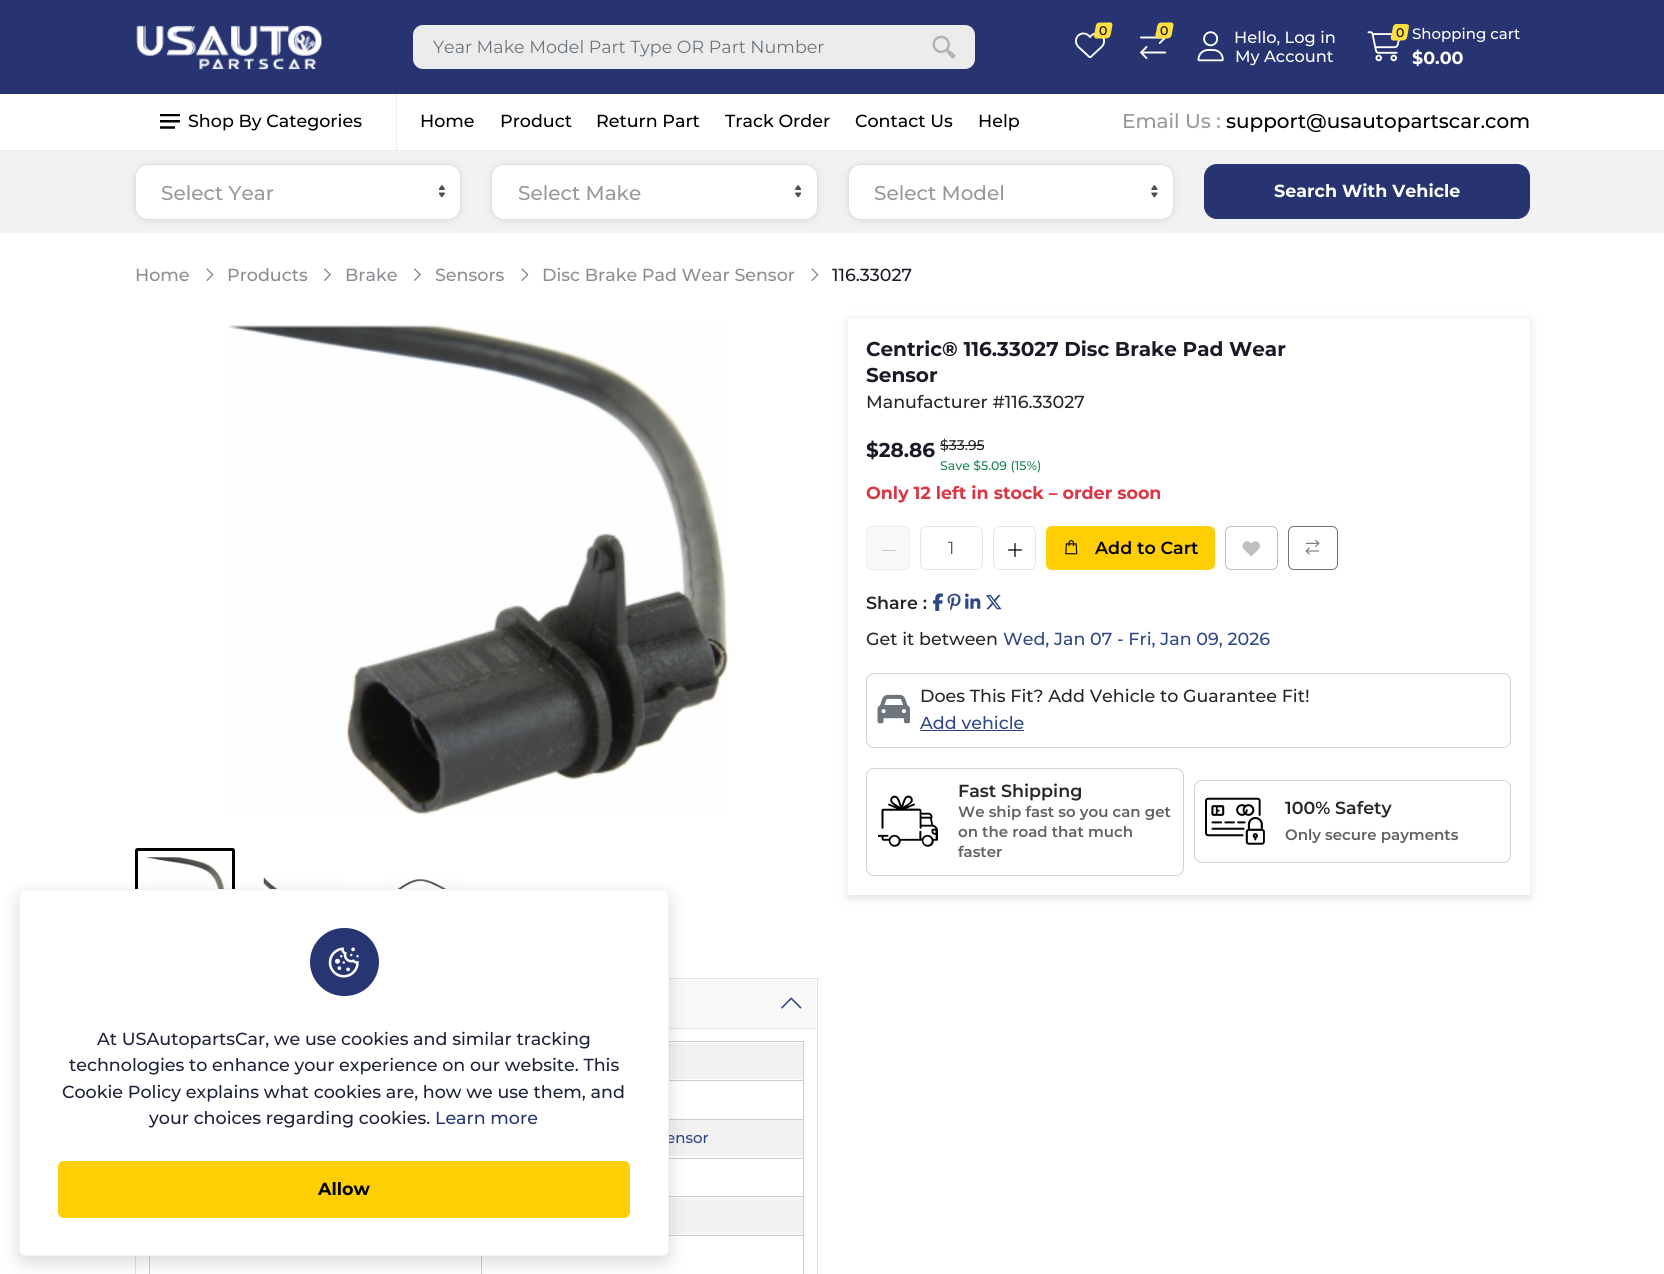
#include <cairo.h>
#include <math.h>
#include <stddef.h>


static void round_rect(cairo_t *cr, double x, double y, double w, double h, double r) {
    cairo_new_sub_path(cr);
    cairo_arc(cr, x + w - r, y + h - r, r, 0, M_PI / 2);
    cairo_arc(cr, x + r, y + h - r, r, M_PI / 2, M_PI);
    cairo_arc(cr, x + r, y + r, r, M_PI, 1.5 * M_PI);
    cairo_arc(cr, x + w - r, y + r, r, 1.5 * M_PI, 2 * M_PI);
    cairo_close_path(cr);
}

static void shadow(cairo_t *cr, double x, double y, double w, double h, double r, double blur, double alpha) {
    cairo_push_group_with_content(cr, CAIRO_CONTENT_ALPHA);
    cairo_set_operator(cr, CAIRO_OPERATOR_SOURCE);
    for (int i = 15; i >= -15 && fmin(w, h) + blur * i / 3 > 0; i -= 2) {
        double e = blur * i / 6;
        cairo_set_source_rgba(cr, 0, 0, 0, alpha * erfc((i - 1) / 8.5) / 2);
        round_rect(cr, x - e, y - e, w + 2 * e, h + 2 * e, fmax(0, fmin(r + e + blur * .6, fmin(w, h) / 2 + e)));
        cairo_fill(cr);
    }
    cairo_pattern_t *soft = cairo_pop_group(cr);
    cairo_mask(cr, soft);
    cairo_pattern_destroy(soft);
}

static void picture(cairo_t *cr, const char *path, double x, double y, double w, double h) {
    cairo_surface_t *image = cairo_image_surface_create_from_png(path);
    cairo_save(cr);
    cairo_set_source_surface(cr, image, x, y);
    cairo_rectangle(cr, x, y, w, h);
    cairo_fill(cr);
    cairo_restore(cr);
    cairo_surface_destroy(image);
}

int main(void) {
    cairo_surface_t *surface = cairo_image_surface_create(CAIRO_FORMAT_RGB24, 1664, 1274);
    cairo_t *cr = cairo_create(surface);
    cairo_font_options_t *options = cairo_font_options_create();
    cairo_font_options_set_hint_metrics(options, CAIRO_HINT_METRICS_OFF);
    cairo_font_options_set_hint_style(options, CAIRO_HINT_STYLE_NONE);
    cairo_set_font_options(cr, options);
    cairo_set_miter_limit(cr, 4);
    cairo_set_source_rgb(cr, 1, 1, 1);
    cairo_paint(cr);
    cairo_set_source_rgb(cr, 0.153, 0.204, 0.443);
    cairo_rectangle(cr, 0, 0, 1664, 94);
    cairo_fill(cr);
    picture(cr, "img1.png", 136, 25, 186, 45);
    cairo_set_source_rgb(cr, 0.922, 0.922, 0.922);
    round_rect(cr, 413, 25, 562, 44, 10);
    cairo_fill(cr);
    cairo_select_font_face(cr, "Montserrat", CAIRO_FONT_SLANT_NORMAL, CAIRO_FONT_WEIGHT_NORMAL);
    cairo_set_font_size(cr, 17.5);
    cairo_set_source_rgb(cr, 0.424, 0.459, 0.49);
    cairo_move_to(cr, 433, 53);
    cairo_show_text(cr, "Year Make Model Part Type OR Part Number");
    picture(cr, "img2.png", 932, 35, 24, 24);
    picture(cr, "img3.png", 1075, 32, 30, 27);
    cairo_set_source_rgb(cr, 1, 0.875, 0.251);
    cairo_new_path(cr);
    cairo_move_to(cr, 1099.5, 22.5);
    cairo_line_to(cr, 1106.5, 22.5);
    cairo_curve_to(cr, 1108.5, 22.5, 1112.5, 21.5, 1112.5, 25);
    cairo_line_to(cr, 1111.5, 30.5);
    cairo_curve_to(cr, 1110.5, 35.5, 1110.5, 38.5, 1105, 38.5);
    cairo_line_to(cr, 1096.5, 38.5);
    cairo_curve_to(cr, 1092.5, 38.5, 1094.5, 32.5, 1095, 30.5);
    cairo_curve_to(cr, 1095.5, 27.5, 1095.5, 22.5, 1099.5, 22.5);
    cairo_close_path(cr);
    cairo_fill(cr);
    cairo_select_font_face(cr, "Montserrat Medium", CAIRO_FONT_SLANT_NORMAL, CAIRO_FONT_WEIGHT_NORMAL);
    cairo_set_font_size(cr, 12.5);
    cairo_set_source_rgb(cr, 0, 0, 0);
    cairo_move_to(cr, 1099, 35);
    cairo_show_text(cr, "0");
    picture(cr, "img4.png", 1140, 36, 27, 23);
    cairo_set_source_rgb(cr, 1, 0.875, 0.251);
    cairo_new_path(cr);
    cairo_move_to(cr, 1161, 22.5);
    cairo_line_to(cr, 1167.5, 22.5);
    cairo_curve_to(cr, 1169.5, 22.5, 1173.5, 21.5, 1173.5, 25);
    cairo_line_to(cr, 1172.5, 30.5);
    cairo_curve_to(cr, 1171.5, 35.5, 1172, 38.5, 1166, 38.5);
    cairo_line_to(cr, 1158, 38.5);
    cairo_curve_to(cr, 1153.5, 38.5, 1156, 32.5, 1156.5, 30.5);
    cairo_curve_to(cr, 1157, 27.5, 1157, 22.5, 1161, 22.5);
    cairo_close_path(cr);
    cairo_fill(cr);
    cairo_set_source_rgb(cr, 0, 0, 0);
    cairo_move_to(cr, 1160, 35);
    cairo_show_text(cr, "0");
    picture(cr, "img5.png", 1197, 31, 27, 31);
    cairo_set_font_size(cr, 16.25);
    cairo_set_source_rgb(cr, 1, 1, 1);
    cairo_move_to(cr, 1234, 43);
    cairo_show_text(cr, "Hello, Log in");
    cairo_move_to(cr, 1235, 62);
    cairo_show_text(cr, "My Account");
    picture(cr, "img6.png", 1367, 31, 33, 31);
    cairo_set_source_rgb(cr, 1, 0.875, 0.251);
    cairo_new_path(cr);
    cairo_move_to(cr, 1396.5, 24);
    cairo_line_to(cr, 1403, 24);
    cairo_curve_to(cr, 1405, 24, 1409, 23.5, 1409, 26.5);
    cairo_line_to(cr, 1408, 32.5);
    cairo_curve_to(cr, 1407, 37.5, 1407.5, 40.5, 1401.5, 40.5);
    cairo_line_to(cr, 1393.5, 40.5);
    cairo_curve_to(cr, 1389, 40.5, 1391.5, 34.5, 1392, 32.5);
    cairo_curve_to(cr, 1392.5, 29.5, 1392.5, 24, 1396.5, 24);
    cairo_close_path(cr);
    cairo_fill(cr);
    cairo_set_font_size(cr, 12.5);
    cairo_set_source_rgb(cr, 0, 0, 0);
    cairo_move_to(cr, 1396, 37);
    cairo_show_text(cr, "0");
    cairo_set_font_size(cr, 15);
    cairo_set_source_rgb(cr, 1, 1, 1);
    cairo_move_to(cr, 1412, 39);
    cairo_show_text(cr, "Shopping cart");
    cairo_select_font_face(cr, "Montserrat", CAIRO_FONT_SLANT_NORMAL, CAIRO_FONT_WEIGHT_BOLD);
    cairo_set_font_size(cr, 17.5);
    cairo_move_to(cr, 1412, 64);
    cairo_show_text(cr, "$0.00");
    cairo_set_source_rgb(cr, 0.922, 0.922, 0.922);
    cairo_rectangle(cr, 0, 150, 1664, 1);
    cairo_fill(cr);
    picture(cr, "img7.png", 160, 114, 20, 15);
    cairo_select_font_face(cr, "Montserrat Medium", CAIRO_FONT_SLANT_NORMAL, CAIRO_FONT_WEIGHT_NORMAL);
    cairo_set_source_rgb(cr, 0, 0, 0);
    cairo_move_to(cr, 188, 127);
    cairo_show_text(cr, "Shop By Categories");
    cairo_set_source_rgb(cr, 0.922, 0.922, 0.922);
    cairo_rectangle(cr, 396, 94, 1, 56);
    cairo_fill(cr);
    cairo_set_source_rgb(cr, 0, 0, 0);
    cairo_move_to(cr, 420, 127);
    cairo_show_text(cr, "Home");
    cairo_move_to(cr, 500, 127);
    cairo_show_text(cr, "Product");
    cairo_move_to(cr, 596, 127);
    cairo_show_text(cr, "Return Part");
    cairo_move_to(cr, 725, 127);
    cairo_show_text(cr, "Track Order");
    cairo_move_to(cr, 855, 127);
    cairo_show_text(cr, "Contact Us");
    cairo_move_to(cr, 978, 127);
    cairo_show_text(cr, "Help");
    cairo_set_font_size(cr, 20);
    cairo_set_source_rgb(cr, 0.6, 0.6, 0.6);
    cairo_move_to(cr, 1122, 128);
    cairo_show_text(cr, "Email Us :");
    cairo_set_source_rgb(cr, 0, 0, 0);
    cairo_move_to(cr, 1226, 128);
    cairo_show_text(cr, "support@usautopartscar.com");
    cairo_set_source_rgb(cr, 0.949, 0.949, 0.949);
    cairo_rectangle(cr, 0, 151, 1664, 82);
    cairo_fill(cr);
    cairo_set_source_rgb(cr, 0.659, 0.659, 0.671);
    shadow(cr, 135, 165, 326, 56, 13, 4, 0.3);
    cairo_set_source_rgb(cr, 1, 1, 1);
    round_rect(cr, 135, 164, 326, 56, 13);
    cairo_fill(cr);
    picture(cr, "img8.png", 439, 185, 6, 13);
    round_rect(cr, 135.5, 164.5, 325, 55, 12.5);
    cairo_set_source_rgba(cr, 0.8, 0.8, 0.8, 0.62);
    cairo_set_line_width(cr, 1);
    cairo_stroke(cr);
    cairo_set_source_rgb(cr, 0.6, 0.6, 0.6);
    cairo_move_to(cr, 161, 200);
    cairo_show_text(cr, "Select Year");
    cairo_set_source_rgb(cr, 0.659, 0.659, 0.671);
    shadow(cr, 491, 165, 327, 56, 13, 4, 0.3);
    cairo_set_source_rgb(cr, 1, 1, 1);
    round_rect(cr, 491, 164, 327, 56, 13);
    cairo_fill(cr);
    picture(cr, "img9.png", 795, 185, 6, 13);
    round_rect(cr, 491.5, 164.5, 326, 55, 12.5);
    cairo_set_source_rgba(cr, 0.8, 0.8, 0.8, 0.62);
    cairo_stroke(cr);
    cairo_set_source_rgb(cr, 0.6, 0.6, 0.6);
    cairo_move_to(cr, 518, 200);
    cairo_show_text(cr, "Select Make");
    cairo_set_source_rgb(cr, 0.659, 0.659, 0.671);
    shadow(cr, 848, 165, 326, 56, 13, 4, 0.3);
    cairo_set_source_rgb(cr, 1, 1, 1);
    round_rect(cr, 848, 164, 326, 56, 13);
    cairo_fill(cr);
    picture(cr, "img10.png", 1151, 185, 7, 13);
    round_rect(cr, 848.5, 164.5, 325, 55, 12.5);
    cairo_set_source_rgba(cr, 0.8, 0.8, 0.8, 0.62);
    cairo_stroke(cr);
    cairo_set_source_rgb(cr, 0.6, 0.6, 0.6);
    cairo_move_to(cr, 874, 200);
    cairo_show_text(cr, "Select Model");
    cairo_set_source_rgb(cr, 0.153, 0.204, 0.443);
    round_rect(cr, 1204.5, 164.5, 325, 54, 12.5);
    cairo_fill_preserve(cr);
    cairo_stroke(cr);
    cairo_select_font_face(cr, "Montserrat", CAIRO_FONT_SLANT_NORMAL, CAIRO_FONT_WEIGHT_BOLD);
    cairo_set_font_size(cr, 17.5);
    cairo_set_source_rgb(cr, 1, 1, 1);
    cairo_move_to(cr, 1274, 197);
    cairo_show_text(cr, "Search With Vehicle");
    cairo_select_font_face(cr, "Montserrat Medium", CAIRO_FONT_SLANT_NORMAL, CAIRO_FONT_WEIGHT_NORMAL);
    cairo_set_source_rgb(cr, 0.553, 0.553, 0.576);
    cairo_move_to(cr, 135, 281);
    cairo_show_text(cr, "Home");
    picture(cr, "img11.png", 206, 268, 8, 13);
    cairo_move_to(cr, 227, 281);
    cairo_show_text(cr, "Products");
    picture(cr, "img12.png", 323, 268, 8, 13);
    cairo_move_to(cr, 345, 281);
    cairo_show_text(cr, "Brake");
    picture(cr, "img12.png", 413, 268, 8, 13);
    cairo_move_to(cr, 435, 281);
    cairo_show_text(cr, "Sensors");
    picture(cr, "img11.png", 521, 268, 8, 13);
    cairo_move_to(cr, 542, 281);
    cairo_show_text(cr, "Disc Brake Pad Wear Sensor");
    picture(cr, "img11.png", 811, 268, 8, 13);
    cairo_set_source_rgb(cr, 0.106, 0.106, 0.153);
    cairo_move_to(cr, 832, 281);
    cairo_show_text(cr, "116.33027");
    picture(cr, "img13.png", 227, 324, 502, 491);
    round_rect(cr, 136.5, 849.5, 97, 97, 1);
    cairo_set_source_rgb(cr, 0, 0, 0);
    cairo_set_line_width(cr, 3);
    cairo_stroke(cr);
    picture(cr, "img14.png", 145, 857, 82, 32);
    picture(cr, "img15.png", 263, 876, 82, 13);
    picture(cr, "img16.png", 382, 878, 82, 11);
    cairo_save(cr);
    cairo_set_fill_rule(cr, CAIRO_FILL_RULE_EVEN_ODD);
    cairo_new_path(cr);
    cairo_move_to(cr, 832, 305);
    cairo_line_to(cr, 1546, 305);
    cairo_line_to(cr, 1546, 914);
    cairo_line_to(cr, 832, 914);
    cairo_close_path(cr);
    cairo_move_to(cr, 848, 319);
    cairo_line_to(cr, 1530, 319);
    cairo_line_to(cr, 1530, 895);
    cairo_line_to(cr, 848, 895);
    cairo_close_path(cr);
    cairo_clip(cr);
    cairo_set_source_rgb(cr, 0.388, 0.388, 0.388);
    shadow(cr, 848, 321, 682, 577, 0, 5, 0.2);
    cairo_restore(cr);
    cairo_select_font_face(cr, "Montserrat", CAIRO_FONT_SLANT_NORMAL, CAIRO_FONT_WEIGHT_BOLD);
    cairo_set_font_size(cr, 20);
    cairo_set_source_rgb(cr, 0.106, 0.106, 0.153);
    cairo_move_to(cr, 866, 356);
    cairo_show_text(cr, "Centric® 116.33027 Disc Brake Pad Wear");
    cairo_move_to(cr, 866, 382);
    cairo_show_text(cr, "Sensor");
    cairo_select_font_face(cr, "Montserrat Medium", CAIRO_FONT_SLANT_NORMAL, CAIRO_FONT_WEIGHT_NORMAL);
    cairo_set_font_size(cr, 17.5);
    cairo_set_source_rgb(cr, 0.149, 0.149, 0.149);
    cairo_move_to(cr, 866, 408);
    cairo_show_text(cr, "Manufacturer #116.33027");
    cairo_select_font_face(cr, "Montserrat", CAIRO_FONT_SLANT_NORMAL, CAIRO_FONT_WEIGHT_BOLD);
    cairo_set_font_size(cr, 20);
    cairo_set_source_rgb(cr, 0.106, 0.106, 0.153);
    cairo_move_to(cr, 866, 457);
    cairo_show_text(cr, "$28.86");
    cairo_select_font_face(cr, "Montserrat Medium", CAIRO_FONT_SLANT_NORMAL, CAIRO_FONT_WEIGHT_NORMAL);
    cairo_set_font_size(cr, 14);
    cairo_set_source_rgb(cr, 0.149, 0.149, 0.149);
    cairo_move_to(cr, 940, 450);
    cairo_show_text(cr, "$33.95");
    cairo_rectangle(cr, 940, 445, 44, 1);
    cairo_fill(cr);
    cairo_set_font_size(cr, 12.5);
    cairo_set_source_rgb(cr, 0.098, 0.529, 0.329);
    cairo_move_to(cr, 940, 470);
    cairo_show_text(cr, "Save $5.09 (15%)");
    cairo_select_font_face(cr, "Montserrat", CAIRO_FONT_SLANT_NORMAL, CAIRO_FONT_WEIGHT_BOLD);
    cairo_set_font_size(cr, 17.5);
    cairo_set_source_rgb(cr, 0.863, 0.208, 0.271);
    cairo_move_to(cr, 866, 499);
    cairo_show_text(cr, "Only 12 left in stock – order soon");
    cairo_set_source_rgb(cr, 0.976, 0.976, 0.976);
    round_rect(cr, 866.5, 526.5, 43, 43, 5.5);
    cairo_fill_preserve(cr);
    cairo_set_source_rgb(cr, 0.933, 0.933, 0.933);
    cairo_set_line_width(cr, 1);
    cairo_stroke(cr);
    cairo_set_source_rgb(cr, 0.788, 0.788, 0.788);
    cairo_rectangle(cr, 882, 550, 14, 1);
    cairo_fill(cr);
    round_rect(cr, 920.5, 526.5, 62, 43, 5.5);
    cairo_set_source_rgb(cr, 0.902, 0.902, 0.902);
    cairo_stroke(cr);
    cairo_select_font_face(cr, "Montserrat", CAIRO_FONT_SLANT_NORMAL, CAIRO_FONT_WEIGHT_NORMAL);
    cairo_set_source_rgb(cr, 0.333, 0.333, 0.333);
    cairo_move_to(cr, 948, 554);
    cairo_show_text(cr, "1");
    round_rect(cr, 993.5, 526.5, 42, 43, 5.5);
    cairo_set_source_rgb(cr, 0.902, 0.902, 0.902);
    cairo_stroke(cr);
    picture(cr, "img17.png", 1008, 543, 14, 14);
    cairo_set_source_rgb(cr, 1, 0.808, 0.02);
    round_rect(cr, 1046.5, 526.5, 168, 43, 5.5);
    cairo_fill_preserve(cr);
    cairo_stroke(cr);
    picture(cr, "img18.png", 1065, 540, 13, 15);
    cairo_select_font_face(cr, "Montserrat SemiBold", CAIRO_FONT_SLANT_NORMAL, CAIRO_FONT_WEIGHT_NORMAL);
    cairo_set_source_rgb(cr, 0, 0, 0);
    cairo_move_to(cr, 1095, 554);
    cairo_show_text(cr, "Add to Cart");
    round_rect(cr, 1225.5, 526.5, 52, 43, 5.5);
    cairo_set_source_rgb(cr, 0.749, 0.749, 0.749);
    cairo_stroke(cr);
    picture(cr, "img19.png", 1242, 541, 18, 16);
    round_rect(cr, 1288.5, 526.5, 49, 43, 5.5);
    cairo_set_source_rgb(cr, 0.424, 0.459, 0.49);
    cairo_stroke(cr);
    picture(cr, "img20.png", 1305, 539, 15, 16);
    cairo_set_source_rgb(cr, 0.149, 0.149, 0.149);
    cairo_move_to(cr, 866, 609);
    cairo_show_text(cr, "Share :");
    picture(cr, "img21.png", 932, 593, 11, 18);
    picture(cr, "img22.png", 947, 593, 14, 18);
    picture(cr, "img23.png", 965, 593, 16, 16);
    picture(cr, "img24.png", 986, 595, 16, 15);
    cairo_select_font_face(cr, "Montserrat Medium", CAIRO_FONT_SLANT_NORMAL, CAIRO_FONT_WEIGHT_NORMAL);
    cairo_move_to(cr, 866, 645);
    cairo_show_text(cr, "Get it between");
    cairo_set_source_rgb(cr, 0.18, 0.278, 0.529);
    cairo_move_to(cr, 1003, 645);
    cairo_show_text(cr, "Wed, Jan 07 - Fri, Jan 09, 2026");
    round_rect(cr, 866.5, 673.5, 644, 74, 7.5);
    cairo_set_source_rgb(cr, 0.824, 0.824, 0.824);
    cairo_stroke(cr);
    picture(cr, "img25.png", 877, 694, 33, 30);
    cairo_set_source_rgb(cr, 0.149, 0.149, 0.149);
    cairo_move_to(cr, 920, 702);
    cairo_show_text(cr, "Does This Fit? Add Vehicle to Guarantee Fit!");
    cairo_set_source_rgb(cr, 0.18, 0.278, 0.529);
    cairo_move_to(cr, 920, 729);
    cairo_show_text(cr, "Add vehicle");
    cairo_rectangle(cr, 920, 730, 104, 1);
    cairo_fill(cr);
    round_rect(cr, 866.5, 768.5, 317, 107, 7.5);
    cairo_set_source_rgb(cr, 0.824, 0.824, 0.824);
    cairo_stroke(cr);
    picture(cr, "img26.png", 878, 795, 60, 52);
    cairo_select_font_face(cr, "Montserrat SemiBold", CAIRO_FONT_SLANT_NORMAL, CAIRO_FONT_WEIGHT_NORMAL);
    cairo_set_source_rgb(cr, 0.149, 0.149, 0.149);
    cairo_move_to(cr, 958, 797);
    cairo_show_text(cr, "Fast Shipping");
    cairo_set_font_size(cr, 15);
    cairo_set_source_rgb(cr, 0.38, 0.38, 0.38);
    cairo_move_to(cr, 958, 817);
    cairo_show_text(cr, "We ship fast so you can get");
    cairo_move_to(cr, 958, 837);
    cairo_show_text(cr, "on the road that much");
    cairo_move_to(cr, 958, 857);
    cairo_show_text(cr, "faster");
    round_rect(cr, 1194.5, 780.5, 316, 82, 7.5);
    cairo_set_source_rgb(cr, 0.824, 0.824, 0.824);
    cairo_stroke(cr);
    picture(cr, "img27.png", 1205, 797, 60, 48);
    cairo_set_font_size(cr, 17.5);
    cairo_set_source_rgb(cr, 0.149, 0.149, 0.149);
    cairo_move_to(cr, 1285, 814);
    cairo_show_text(cr, "100% Safety");
    cairo_set_font_size(cr, 15);
    cairo_set_source_rgb(cr, 0.38, 0.38, 0.38);
    cairo_move_to(cr, 1285, 840);
    cairo_show_text(cr, "Only secure payments");
    cairo_rectangle(cr, 135.5, 978.5, 682, 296);
    cairo_set_source_rgb(cr, 0.871, 0.886, 0.902);
    cairo_stroke(cr);
    cairo_set_source_rgb(cr, 0.976, 0.976, 0.976);
    cairo_rectangle(cr, 669, 979, 147, 49);
    cairo_fill(cr);
    cairo_set_source_rgb(cr, 0.871, 0.886, 0.902);
    cairo_rectangle(cr, 669, 1028, 147, 1);
    cairo_fill(cr);
    picture(cr, "img28.png", 781, 997, 21, 12);
    cairo_set_source_rgb(cr, 0.8, 0.8, 0.8);
    cairo_rectangle(cr, 669, 1041, 135, 1);
    cairo_fill(cr);
    cairo_rectangle(cr, 803, 1041, 1, 233);
    cairo_fill(cr);
    cairo_rectangle(cr, 149, 1256, 1, 18);
    cairo_fill(cr);
    cairo_set_source_rgb(cr, 0.949, 0.949, 0.949);
    cairo_rectangle(cr, 669, 1043, 134, 36);
    cairo_fill(cr);
    cairo_set_source_rgb(cr, 0.8, 0.8, 0.8);
    cairo_rectangle(cr, 669, 1080, 135, 1);
    cairo_fill(cr);
    cairo_set_source_rgb(cr, 0.949, 0.949, 0.949);
    cairo_rectangle(cr, 669, 1120, 134, 36);
    cairo_fill(cr);
    cairo_set_source_rgb(cr, 0.8, 0.8, 0.8);
    cairo_rectangle(cr, 669, 1119, 135, 1);
    cairo_fill(cr);
    cairo_select_font_face(cr, "Montserrat Medium", CAIRO_FONT_SLANT_NORMAL, CAIRO_FONT_WEIGHT_NORMAL);
    cairo_set_source_rgb(cr, 0.18, 0.278, 0.529);
    cairo_move_to(cr, 666, 1143);
    cairo_show_text(cr, "ensor");
    cairo_set_source_rgb(cr, 0.8, 0.8, 0.8);
    cairo_rectangle(cr, 669, 1158, 135, 1);
    cairo_fill(cr);
    cairo_set_source_rgb(cr, 0.949, 0.949, 0.949);
    cairo_rectangle(cr, 669, 1198, 134, 36);
    cairo_fill(cr);
    cairo_set_source_rgb(cr, 0.8, 0.8, 0.8);
    cairo_rectangle(cr, 669, 1196, 135, 1);
    cairo_fill(cr);
    cairo_rectangle(cr, 669, 1235, 135, 1);
    cairo_fill(cr);
    cairo_rectangle(cr, 481, 1256, 1, 18);
    cairo_fill(cr);
    cairo_set_source_rgb(cr, 0, 0, 0);
    shadow(cr, 19, 899, 650, 367, 6, 12.5, 0.05);
    shadow(cr, 19, 894, 650, 367, 6, 7.5, 0.1);
    cairo_set_source_rgb(cr, 1, 1, 1);
    round_rect(cr, 19.5, 889.5, 649, 366, 5.5);
    cairo_fill_preserve(cr);
    cairo_set_source_rgb(cr, 0.949, 0.949, 0.949);
    cairo_stroke(cr);
    cairo_set_source_rgb(cr, 0.153, 0.208, 0.447);
    round_rect(cr, 310, 928, 69, 68, 34);
    cairo_fill(cr);
    picture(cr, "img29.png", 328, 947, 31, 31);
    cairo_set_font_size(cr, 17.5);
    cairo_set_source_rgb(cr, 0.118, 0.137, 0.216);
    cairo_move_to(cr, 97, 1045);
    cairo_show_text(cr, "At USAutopartsCar, we use cookies and similar tracking");
    cairo_move_to(cr, 69, 1071);
    cairo_show_text(cr, "technologies to enhance your experience on our website. This");
    cairo_move_to(cr, 62, 1098);
    cairo_show_text(cr, "Cookie Policy explains what cookies are, how we use them, and");
    cairo_move_to(cr, 149, 1124);
    cairo_show_text(cr, "your choices regarding cookies.");
    cairo_set_source_rgb(cr, 0.153, 0.208, 0.447);
    cairo_move_to(cr, 435, 1124);
    cairo_show_text(cr, "Learn more");
    cairo_set_source_rgb(cr, 1, 0.808, 0.02);
    round_rect(cr, 58, 1161, 572, 57, 6);
    cairo_fill(cr);
    cairo_select_font_face(cr, "Montserrat", CAIRO_FONT_SLANT_NORMAL, CAIRO_FONT_WEIGHT_BOLD);
    cairo_set_source_rgb(cr, 0, 0, 0);
    cairo_move_to(cr, 318, 1195);
    cairo_show_text(cr, "Allow");
    cairo_surface_write_to_png(surface, "page.png");
    cairo_font_options_destroy(options);
    cairo_destroy(cr);
    cairo_surface_destroy(surface);
    return 0;
}
